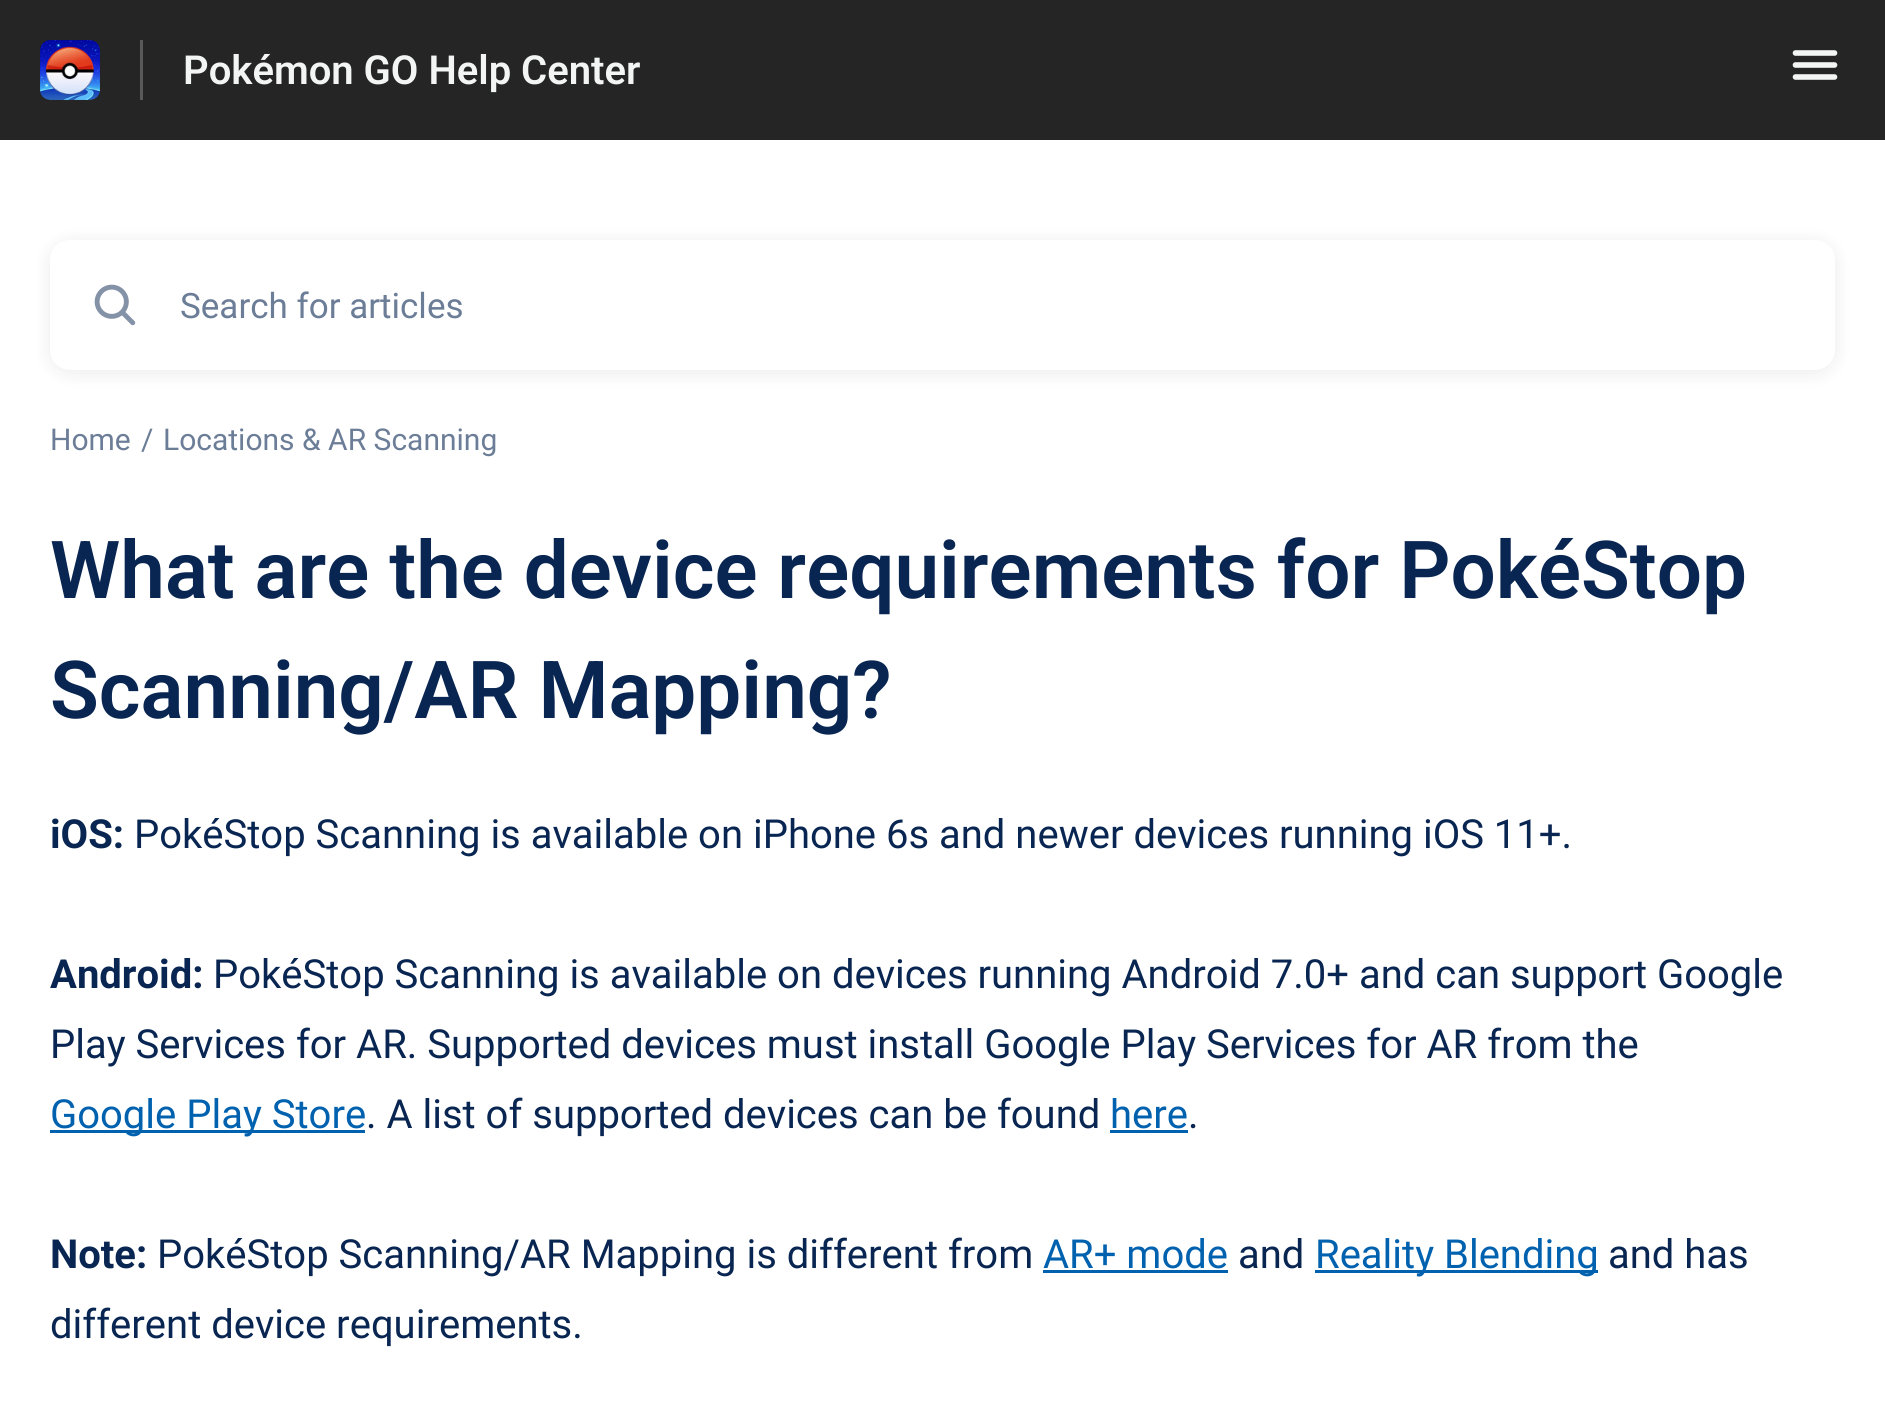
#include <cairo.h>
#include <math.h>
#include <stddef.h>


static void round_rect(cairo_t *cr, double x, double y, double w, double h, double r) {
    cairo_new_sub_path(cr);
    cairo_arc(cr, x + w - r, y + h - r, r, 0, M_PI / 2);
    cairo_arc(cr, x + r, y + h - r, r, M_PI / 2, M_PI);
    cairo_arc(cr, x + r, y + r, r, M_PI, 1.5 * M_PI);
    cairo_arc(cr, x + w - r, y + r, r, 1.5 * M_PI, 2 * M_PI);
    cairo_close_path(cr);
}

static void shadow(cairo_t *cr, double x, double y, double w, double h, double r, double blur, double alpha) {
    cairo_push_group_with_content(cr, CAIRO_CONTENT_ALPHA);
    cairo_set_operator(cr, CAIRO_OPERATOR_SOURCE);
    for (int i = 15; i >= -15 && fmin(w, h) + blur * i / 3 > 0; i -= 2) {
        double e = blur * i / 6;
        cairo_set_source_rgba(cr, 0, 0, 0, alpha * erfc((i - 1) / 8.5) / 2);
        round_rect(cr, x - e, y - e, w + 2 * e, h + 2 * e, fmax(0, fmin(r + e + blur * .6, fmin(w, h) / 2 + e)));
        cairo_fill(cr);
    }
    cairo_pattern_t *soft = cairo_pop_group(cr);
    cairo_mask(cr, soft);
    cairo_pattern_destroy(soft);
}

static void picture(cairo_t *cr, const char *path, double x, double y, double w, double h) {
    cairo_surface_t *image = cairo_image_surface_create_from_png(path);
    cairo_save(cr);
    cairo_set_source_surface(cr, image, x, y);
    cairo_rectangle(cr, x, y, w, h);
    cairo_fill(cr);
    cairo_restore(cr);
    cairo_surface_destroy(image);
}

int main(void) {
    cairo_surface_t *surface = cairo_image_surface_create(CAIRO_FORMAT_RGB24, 1885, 1404);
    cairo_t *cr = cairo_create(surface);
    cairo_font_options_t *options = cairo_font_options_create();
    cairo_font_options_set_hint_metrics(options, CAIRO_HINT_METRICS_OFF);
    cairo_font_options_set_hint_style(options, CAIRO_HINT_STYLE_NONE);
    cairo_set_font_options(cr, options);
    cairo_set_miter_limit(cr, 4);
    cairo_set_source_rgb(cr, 1, 1, 1);
    cairo_paint(cr);
    cairo_set_source_rgb(cr, 0.145, 0.145, 0.145);
    cairo_rectangle(cr, 0, 0, 1885, 140);
    cairo_fill(cr);
    cairo_set_source_rgb(cr, 0.349, 0.349, 0.349);
    cairo_rectangle(cr, 140, 40, 3, 60);
    cairo_fill(cr);
    picture(cr, "img1.png", 40, 40, 60, 60);
    cairo_select_font_face(cr, "Roboto SemiBold", CAIRO_FONT_SLANT_NORMAL, CAIRO_FONT_WEIGHT_NORMAL);
    cairo_set_font_size(cr, 40);
    cairo_set_source_rgb(cr, 0.953, 0.957, 0.957);
    cairo_move_to(cr, 183, 84);
    cairo_show_text(cr, "Pokémon GO Help Center");
    cairo_new_path(cr);
    cairo_move_to(cr, 1795.5, 53);
    cairo_line_to(cr, 1834.5, 53);
    cairo_move_to(cr, 1795.5, 65);
    cairo_line_to(cr, 1834.5, 65);
    cairo_move_to(cr, 1795.5, 77);
    cairo_line_to(cr, 1834.5, 77);
    cairo_set_line_width(cr, 5.6);
    cairo_set_line_cap(cr, CAIRO_LINE_CAP_ROUND);
    cairo_stroke(cr);
    cairo_set_source_rgb(cr, 0, 0, 0);
    shadow(cr, 50, 243, 1785, 130, 20, 10, 0.08);
    cairo_set_source_rgb(cr, 1, 1, 1);
    round_rect(cr, 50, 240, 1785, 130, 20);
    cairo_fill(cr);
    picture(cr, "img2.png", 94, 284, 42, 42);
    cairo_select_font_face(cr, "Roboto", CAIRO_FONT_SLANT_NORMAL, CAIRO_FONT_WEIGHT_NORMAL);
    cairo_set_font_size(cr, 35);
    cairo_set_source_rgb(cr, 0.424, 0.49, 0.592);
    cairo_move_to(cr, 180, 318);
    cairo_show_text(cr, "Search for articles");
    cairo_set_font_size(cr, 30);
    cairo_move_to(cr, 50, 450);
    cairo_show_text(cr, "Home");
    cairo_move_to(cr, 141, 450);
    cairo_show_text(cr, "/");
    cairo_move_to(cr, 163, 450);
    cairo_show_text(cr, "Locations & AR Scanning");
    cairo_select_font_face(cr, "Roboto SemiBold", CAIRO_FONT_SLANT_NORMAL, CAIRO_FONT_WEIGHT_NORMAL);
    cairo_set_font_size(cr, 80);
    cairo_set_source_rgb(cr, 0.039, 0.149, 0.322);
    cairo_move_to(cr, 50, 598);
    cairo_show_text(cr, "What are the device requirements for PokéStop");
    cairo_move_to(cr, 50, 718);
    cairo_show_text(cr, "Scanning/AR Mapping?");
    cairo_select_font_face(cr, "Roboto", CAIRO_FONT_SLANT_NORMAL, CAIRO_FONT_WEIGHT_BOLD);
    cairo_set_font_size(cr, 40);
    cairo_move_to(cr, 50, 848);
    cairo_show_text(cr, "iOS:");
    cairo_select_font_face(cr, "Roboto", CAIRO_FONT_SLANT_NORMAL, CAIRO_FONT_WEIGHT_NORMAL);
    cairo_move_to(cr, 134, 848);
    cairo_show_text(cr, "PokéStop Scanning is available on iPhone 6s and newer devices running iOS 11+.");
    cairo_select_font_face(cr, "Roboto", CAIRO_FONT_SLANT_NORMAL, CAIRO_FONT_WEIGHT_BOLD);
    cairo_move_to(cr, 50, 988);
    cairo_show_text(cr, "Android:");
    cairo_select_font_face(cr, "Roboto", CAIRO_FONT_SLANT_NORMAL, CAIRO_FONT_WEIGHT_NORMAL);
    cairo_move_to(cr, 213, 988);
    cairo_show_text(cr, "PokéStop Scanning is available on devices running Android 7.0+ and can support Google");
    cairo_move_to(cr, 50, 1058);
    cairo_show_text(cr, "Play Services for AR. Supported devices must install Google Play Services for AR from the");
    cairo_set_source_rgb(cr, 0, 0.38, 0.686);
    cairo_rectangle(cr, 50, 1130, 315, 3);
    cairo_fill(cr);
    cairo_move_to(cr, 50, 1128);
    cairo_show_text(cr, "Google Play Store");
    cairo_set_source_rgb(cr, 0.039, 0.149, 0.322);
    cairo_move_to(cr, 366, 1128);
    cairo_show_text(cr, ". A list of supported devices can be found");
    cairo_set_source_rgb(cr, 0, 0.38, 0.686);
    cairo_move_to(cr, 1110, 1128);
    cairo_show_text(cr, "here");
    cairo_rectangle(cr, 1110, 1130, 78, 3);
    cairo_fill(cr);
    cairo_set_source_rgb(cr, 0.039, 0.149, 0.322);
    cairo_move_to(cr, 1188, 1128);
    cairo_show_text(cr, ".");
    cairo_select_font_face(cr, "Roboto", CAIRO_FONT_SLANT_NORMAL, CAIRO_FONT_WEIGHT_BOLD);
    cairo_move_to(cr, 50, 1268);
    cairo_show_text(cr, "Note:");
    cairo_select_font_face(cr, "Roboto", CAIRO_FONT_SLANT_NORMAL, CAIRO_FONT_WEIGHT_NORMAL);
    cairo_move_to(cr, 157, 1268);
    cairo_show_text(cr, "PokéStop Scanning/AR Mapping is different from");
    cairo_set_source_rgb(cr, 0, 0.38, 0.686);
    cairo_move_to(cr, 1043, 1268);
    cairo_show_text(cr, "AR+ mode");
    cairo_rectangle(cr, 1043, 1270, 185, 3);
    cairo_fill(cr);
    cairo_set_source_rgb(cr, 0.039, 0.149, 0.322);
    cairo_move_to(cr, 1238, 1268);
    cairo_show_text(cr, "and");
    cairo_set_source_rgb(cr, 0, 0.38, 0.686);
    cairo_rectangle(cr, 1315, 1270, 283, 3);
    cairo_fill(cr);
    cairo_move_to(cr, 1315, 1268);
    cairo_show_text(cr, "Reality Blending");
    cairo_set_source_rgb(cr, 0.039, 0.149, 0.322);
    cairo_move_to(cr, 1608, 1268);
    cairo_show_text(cr, "and has");
    cairo_move_to(cr, 50, 1338);
    cairo_show_text(cr, "different device requirements.");
    cairo_surface_write_to_png(surface, "page.png");
    cairo_font_options_destroy(options);
    cairo_destroy(cr);
    cairo_surface_destroy(surface);
    return 0;
}
